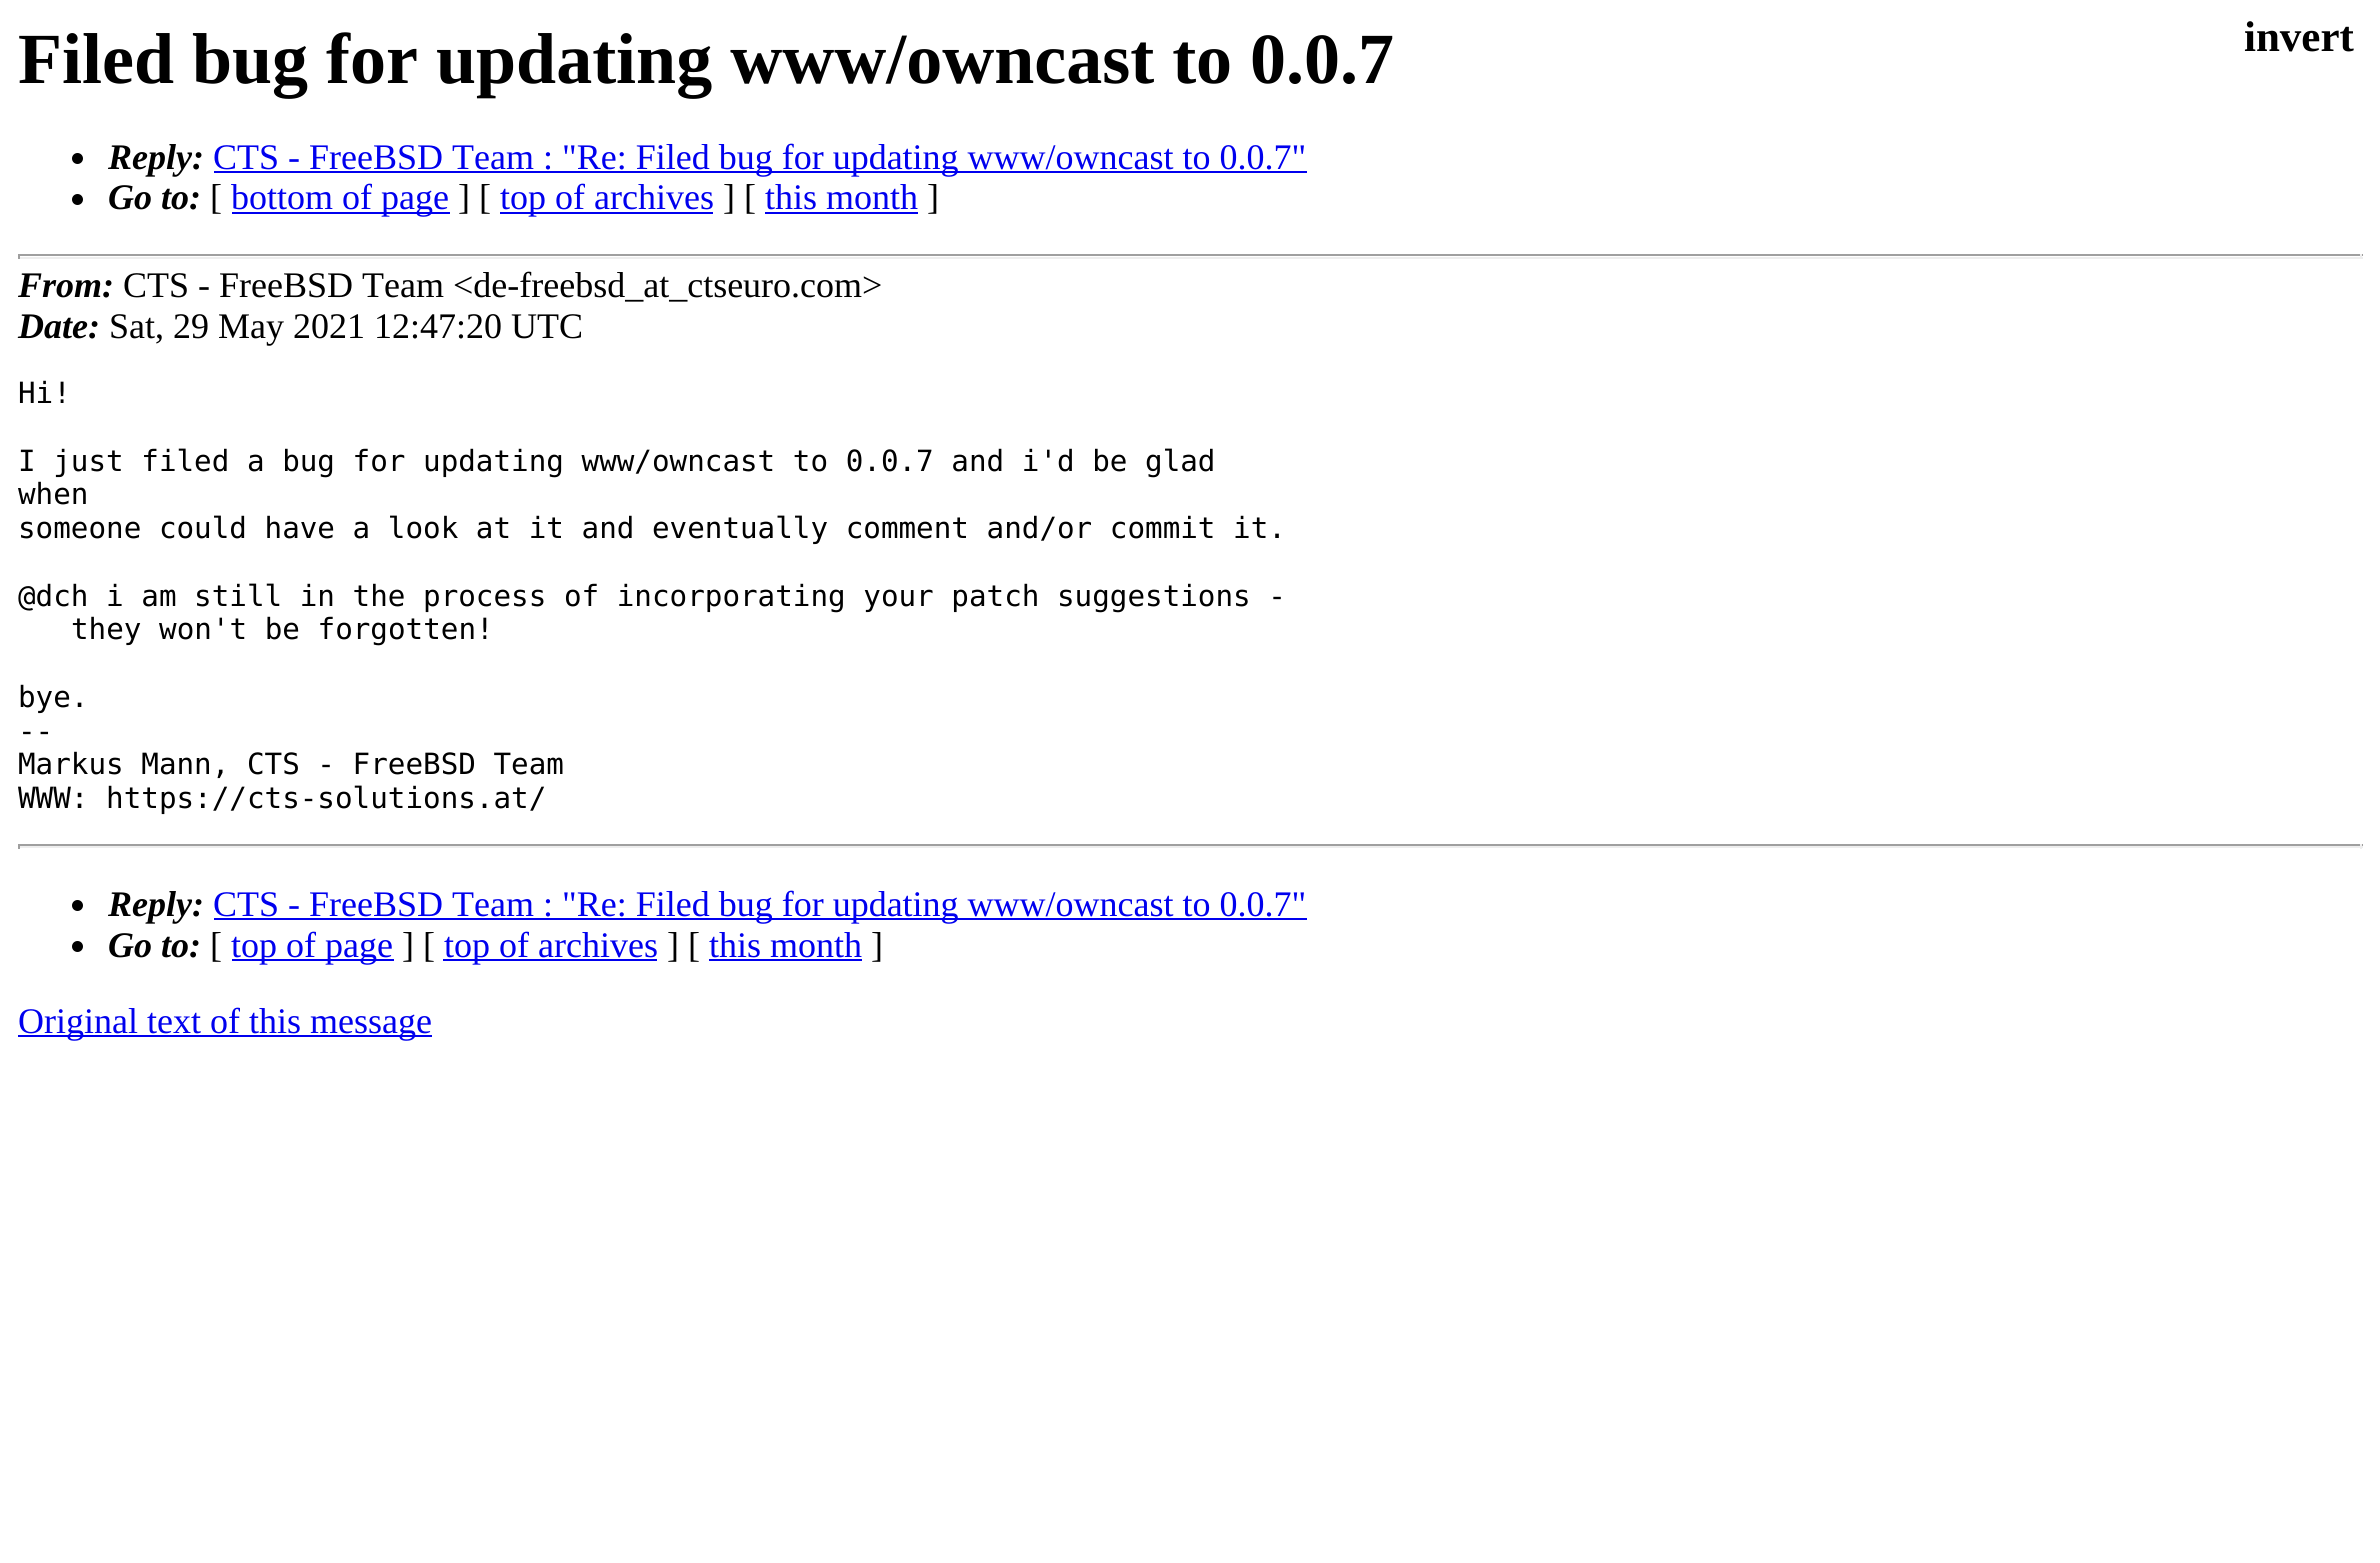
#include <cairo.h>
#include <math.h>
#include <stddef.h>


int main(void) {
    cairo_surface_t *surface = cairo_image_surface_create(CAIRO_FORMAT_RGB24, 2380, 1563);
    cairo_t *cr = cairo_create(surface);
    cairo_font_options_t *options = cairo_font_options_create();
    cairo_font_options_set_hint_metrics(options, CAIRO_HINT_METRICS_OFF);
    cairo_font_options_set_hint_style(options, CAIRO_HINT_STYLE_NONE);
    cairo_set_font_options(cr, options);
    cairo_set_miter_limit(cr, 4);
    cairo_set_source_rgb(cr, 1, 1, 1);
    cairo_paint(cr);
    cairo_select_font_face(cr, "Liberation Serif", CAIRO_FONT_SLANT_NORMAL, CAIRO_FONT_WEIGHT_BOLD);
    cairo_set_font_size(cr, 72);
    cairo_set_source_rgb(cr, 0, 0, 0);
    cairo_move_to(cr, 18, 83);
    cairo_show_text(cr, "Filed bug for updating www/owncast to 0.0.7");
    cairo_new_path(cr);
    cairo_arc(cr, 77.5, 158.5, 5.5, 0, 2 * M_PI);
    cairo_fill(cr);
    cairo_select_font_face(cr, "Liberation Serif", CAIRO_FONT_SLANT_ITALIC, CAIRO_FONT_WEIGHT_BOLD);
    cairo_set_font_size(cr, 36);
    cairo_move_to(cr, 108, 169);
    cairo_show_text(cr, "Reply:");
    cairo_set_source_rgb(cr, 0, 0, 0.933);
    cairo_rectangle(cr, 214, 171, 1093, 2);
    cairo_fill(cr);
    cairo_select_font_face(cr, "Liberation Serif", CAIRO_FONT_SLANT_NORMAL, CAIRO_FONT_WEIGHT_NORMAL);
    cairo_move_to(cr, 213, 169);
    cairo_show_text(cr, "CTS - FreeBSD Team : \"Re: Filed bug for updating www/owncast to 0.0.7\"");
    cairo_set_source_rgb(cr, 0, 0, 0);
    cairo_new_path(cr);
    cairo_arc(cr, 77.5, 199.5, 5.5, 0, 2 * M_PI);
    cairo_fill(cr);
    cairo_select_font_face(cr, "Liberation Serif", CAIRO_FONT_SLANT_ITALIC, CAIRO_FONT_WEIGHT_BOLD);
    cairo_move_to(cr, 108, 209);
    cairo_show_text(cr, "Go to:");
    cairo_select_font_face(cr, "Liberation Serif", CAIRO_FONT_SLANT_NORMAL, CAIRO_FONT_WEIGHT_NORMAL);
    cairo_move_to(cr, 210, 209);
    cairo_show_text(cr, "[");
    cairo_set_source_rgb(cr, 0, 0, 0.933);
    cairo_rectangle(cr, 232, 212, 218, 2);
    cairo_fill(cr);
    cairo_move_to(cr, 231, 209);
    cairo_show_text(cr, "bottom of page");
    cairo_set_source_rgb(cr, 0, 0, 0);
    cairo_move_to(cr, 458, 209);
    cairo_show_text(cr, "] [");
    cairo_set_source_rgb(cr, 0, 0, 0.933);
    cairo_rectangle(cr, 500, 212, 213, 2);
    cairo_fill(cr);
    cairo_move_to(cr, 500, 209);
    cairo_show_text(cr, "top of archives");
    cairo_set_source_rgb(cr, 0, 0, 0);
    cairo_move_to(cr, 723, 209);
    cairo_show_text(cr, "] [");
    cairo_set_source_rgb(cr, 0, 0, 0.933);
    cairo_move_to(cr, 765, 209);
    cairo_show_text(cr, "this month");
    cairo_rectangle(cr, 765, 212, 153, 2);
    cairo_fill(cr);
    cairo_set_source_rgb(cr, 0, 0, 0);
    cairo_move_to(cr, 927, 209);
    cairo_show_text(cr, "]");
    cairo_set_source_rgb(cr, 0.624, 0.624, 0.624);
    cairo_rectangle(cr, 18, 254, 2345, 2);
    cairo_fill(cr);
    cairo_set_source_rgb(cr, 0.933, 0.933, 0.933);
    cairo_rectangle(cr, 2360, 254, 2, 5);
    cairo_fill(cr);
    cairo_rectangle(cr, 18, 257, 2345, 2);
    cairo_fill(cr);
    cairo_set_source_rgb(cr, 0.624, 0.624, 0.624);
    cairo_rectangle(cr, 18, 254, 2, 5);
    cairo_fill(cr);
    cairo_select_font_face(cr, "Liberation Serif", CAIRO_FONT_SLANT_NORMAL, CAIRO_FONT_WEIGHT_BOLD);
    cairo_set_font_size(cr, 43);
    cairo_set_source_rgb(cr, 0, 0, 0);
    cairo_move_to(cr, 2244, 51);
    cairo_show_text(cr, "invert");
    cairo_select_font_face(cr, "Liberation Serif", CAIRO_FONT_SLANT_ITALIC, CAIRO_FONT_WEIGHT_BOLD);
    cairo_set_font_size(cr, 36);
    cairo_move_to(cr, 18, 297);
    cairo_show_text(cr, "From:");
    cairo_select_font_face(cr, "Liberation Serif", CAIRO_FONT_SLANT_NORMAL, CAIRO_FONT_WEIGHT_NORMAL);
    cairo_move_to(cr, 123, 297);
    cairo_show_text(cr, "CTS - FreeBSD Team <de-freebsd_at_ctseuro.com>");
    cairo_select_font_face(cr, "Liberation Serif", CAIRO_FONT_SLANT_ITALIC, CAIRO_FONT_WEIGHT_BOLD);
    cairo_move_to(cr, 18, 338);
    cairo_show_text(cr, "Date:");
    cairo_select_font_face(cr, "Liberation Serif", CAIRO_FONT_SLANT_NORMAL, CAIRO_FONT_WEIGHT_NORMAL);
    cairo_move_to(cr, 109, 338);
    cairo_show_text(cr, "Sat, 29 May 2021 12:47:20 UTC");
    cairo_select_font_face(cr, "DejaVu Sans Mono", CAIRO_FONT_SLANT_NORMAL, CAIRO_FONT_WEIGHT_NORMAL);
    cairo_set_font_size(cr, 29.25);
    cairo_move_to(cr, 18, 403);
    cairo_show_text(cr, "Hi!");
    cairo_move_to(cr, 18, 471);
    cairo_show_text(cr, "I just filed a bug for updating www/owncast to 0.0.7 and i'd be glad");
    cairo_move_to(cr, 18, 504);
    cairo_show_text(cr, "when");
    cairo_move_to(cr, 18, 538);
    cairo_show_text(cr, "someone could have a look at it and eventually comment and/or commit it.");
    cairo_move_to(cr, 18, 606);
    cairo_show_text(cr, "@dch i am still in the process of incorporating your patch suggestions -");
    cairo_move_to(cr, 71, 639);
    cairo_show_text(cr, "they won't be forgotten!");
    cairo_move_to(cr, 18, 707);
    cairo_show_text(cr, "bye.");
    cairo_move_to(cr, 18, 741);
    cairo_show_text(cr, "--");
    cairo_move_to(cr, 18, 774);
    cairo_show_text(cr, "Markus Mann, CTS - FreeBSD Team");
    cairo_move_to(cr, 18, 808);
    cairo_show_text(cr, "WWW: https://cts-solutions.at/");
    cairo_set_source_rgb(cr, 0.624, 0.624, 0.624);
    cairo_rectangle(cr, 18, 844, 2345, 2);
    cairo_fill(cr);
    cairo_set_source_rgb(cr, 0.933, 0.933, 0.933);
    cairo_rectangle(cr, 2360, 844, 2, 5);
    cairo_fill(cr);
    cairo_rectangle(cr, 18, 846, 2345, 2);
    cairo_fill(cr);
    cairo_set_source_rgb(cr, 0.624, 0.624, 0.624);
    cairo_rectangle(cr, 18, 844, 2, 5);
    cairo_fill(cr);
    cairo_set_source_rgb(cr, 0, 0, 0);
    cairo_arc(cr, 77.5, 905.5, 5.5, 0, 2 * M_PI);
    cairo_fill(cr);
    cairo_select_font_face(cr, "Liberation Serif", CAIRO_FONT_SLANT_ITALIC, CAIRO_FONT_WEIGHT_BOLD);
    cairo_set_font_size(cr, 36);
    cairo_move_to(cr, 108, 916);
    cairo_show_text(cr, "Reply:");
    cairo_set_source_rgb(cr, 0, 0, 0.933);
    cairo_rectangle(cr, 214, 918, 1093, 2);
    cairo_fill(cr);
    cairo_select_font_face(cr, "Liberation Serif", CAIRO_FONT_SLANT_NORMAL, CAIRO_FONT_WEIGHT_NORMAL);
    cairo_move_to(cr, 213, 916);
    cairo_show_text(cr, "CTS - FreeBSD Team : \"Re: Filed bug for updating www/owncast to 0.0.7\"");
    cairo_set_source_rgb(cr, 0, 0, 0);
    cairo_new_path(cr);
    cairo_arc(cr, 77.5, 946.5, 5.5, 0, 2 * M_PI);
    cairo_fill(cr);
    cairo_select_font_face(cr, "Liberation Serif", CAIRO_FONT_SLANT_ITALIC, CAIRO_FONT_WEIGHT_BOLD);
    cairo_move_to(cr, 108, 957);
    cairo_show_text(cr, "Go to:");
    cairo_select_font_face(cr, "Liberation Serif", CAIRO_FONT_SLANT_NORMAL, CAIRO_FONT_WEIGHT_NORMAL);
    cairo_move_to(cr, 210, 957);
    cairo_show_text(cr, "[");
    cairo_set_source_rgb(cr, 0, 0, 0.933);
    cairo_rectangle(cr, 232, 959, 162, 2);
    cairo_fill(cr);
    cairo_move_to(cr, 231, 957);
    cairo_show_text(cr, "top of page");
    cairo_set_source_rgb(cr, 0, 0, 0);
    cairo_move_to(cr, 402, 957);
    cairo_show_text(cr, "] [");
    cairo_set_source_rgb(cr, 0, 0, 0.933);
    cairo_rectangle(cr, 443, 959, 214, 2);
    cairo_fill(cr);
    cairo_move_to(cr, 444, 957);
    cairo_show_text(cr, "top of archives");
    cairo_set_source_rgb(cr, 0, 0, 0);
    cairo_move_to(cr, 667, 957);
    cairo_show_text(cr, "] [");
    cairo_set_source_rgb(cr, 0, 0, 0.933);
    cairo_move_to(cr, 709, 957);
    cairo_show_text(cr, "this month");
    cairo_rectangle(cr, 709, 959, 153, 2);
    cairo_fill(cr);
    cairo_set_source_rgb(cr, 0, 0, 0);
    cairo_move_to(cr, 871, 957);
    cairo_show_text(cr, "]");
    cairo_set_source_rgb(cr, 0, 0, 0.933);
    cairo_rectangle(cr, 18, 1035, 414, 2);
    cairo_fill(cr);
    cairo_move_to(cr, 18, 1033);
    cairo_show_text(cr, "Original text of this message");
    cairo_surface_write_to_png(surface, "page.png");
    cairo_font_options_destroy(options);
    cairo_destroy(cr);
    cairo_surface_destroy(surface);
    return 0;
}
